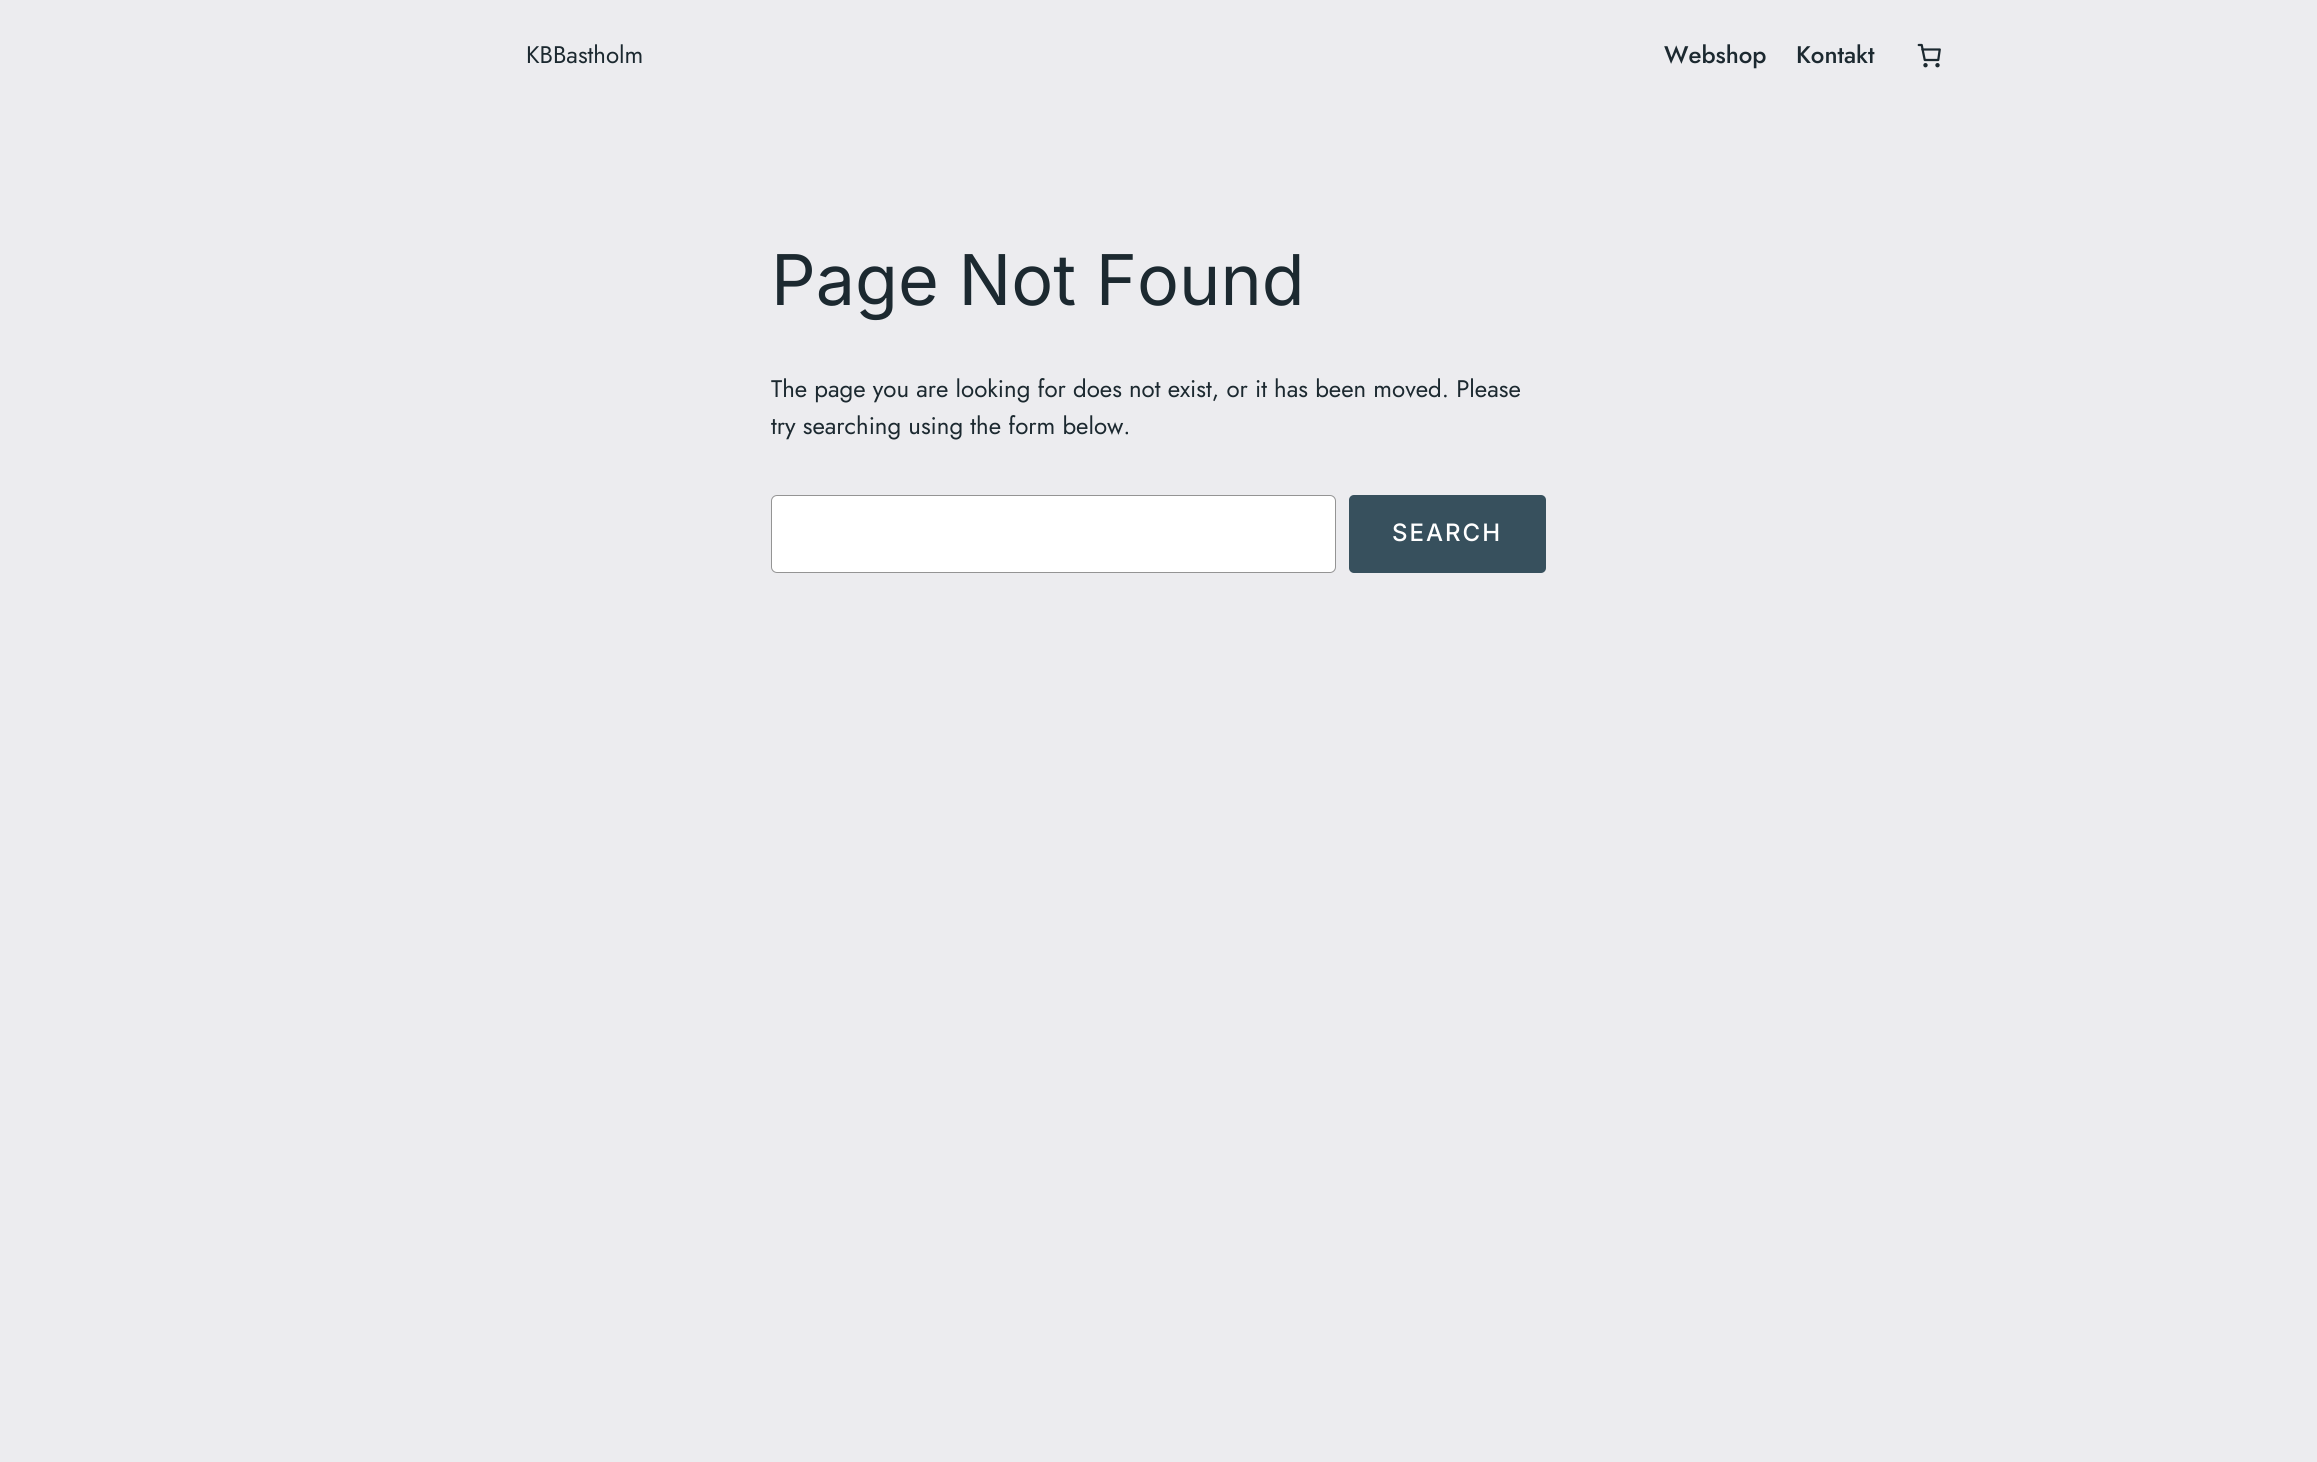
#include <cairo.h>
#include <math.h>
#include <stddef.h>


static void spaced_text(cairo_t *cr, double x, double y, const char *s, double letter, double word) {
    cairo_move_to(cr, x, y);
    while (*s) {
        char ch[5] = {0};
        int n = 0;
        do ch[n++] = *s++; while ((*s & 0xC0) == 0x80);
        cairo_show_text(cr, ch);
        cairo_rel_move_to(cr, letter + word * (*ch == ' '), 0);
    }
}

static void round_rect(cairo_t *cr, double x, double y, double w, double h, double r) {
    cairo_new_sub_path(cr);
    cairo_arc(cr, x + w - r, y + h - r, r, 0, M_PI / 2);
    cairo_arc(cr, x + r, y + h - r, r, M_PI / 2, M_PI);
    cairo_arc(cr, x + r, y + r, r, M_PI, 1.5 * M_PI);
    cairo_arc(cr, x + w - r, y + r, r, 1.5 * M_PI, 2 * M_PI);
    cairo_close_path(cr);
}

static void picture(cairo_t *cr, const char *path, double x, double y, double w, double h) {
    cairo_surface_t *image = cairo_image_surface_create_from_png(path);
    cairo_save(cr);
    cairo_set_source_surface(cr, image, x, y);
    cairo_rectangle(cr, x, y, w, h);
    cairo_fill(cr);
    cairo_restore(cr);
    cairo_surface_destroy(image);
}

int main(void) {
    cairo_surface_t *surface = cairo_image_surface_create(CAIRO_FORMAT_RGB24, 2317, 1462);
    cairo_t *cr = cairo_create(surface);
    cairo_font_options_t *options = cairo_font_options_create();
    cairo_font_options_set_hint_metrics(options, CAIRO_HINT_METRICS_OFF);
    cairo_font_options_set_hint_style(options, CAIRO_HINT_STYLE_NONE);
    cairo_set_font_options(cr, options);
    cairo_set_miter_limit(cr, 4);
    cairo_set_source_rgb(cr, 0.922, 0.922, 0.937);
    cairo_paint(cr);
    cairo_select_font_face(cr, "Jost", CAIRO_FONT_SLANT_NORMAL, CAIRO_FONT_WEIGHT_NORMAL);
    cairo_set_font_size(cr, 24);
    cairo_set_source_rgb(cr, 0.11, 0.161, 0.188);
    cairo_move_to(cr, 526, 63);
    cairo_show_text(cr, "KBBastholm");
    cairo_select_font_face(cr, "Jost Medium", CAIRO_FONT_SLANT_NORMAL, CAIRO_FONT_WEIGHT_NORMAL);
    cairo_move_to(cr, 1664, 63);
    cairo_show_text(cr, "Webshop");
    cairo_move_to(cr, 1796, 63);
    cairo_show_text(cr, "Kontakt");
    picture(cr, "img1.png", 1917, 43, 24, 25);
    cairo_select_font_face(cr, "Inter", CAIRO_FONT_SLANT_NORMAL, CAIRO_FONT_WEIGHT_NORMAL);
    cairo_set_font_size(cr, 70);
    cairo_move_to(cr, 771, 305);
    cairo_show_text(cr, "Page Not Found");
    cairo_select_font_face(cr, "Jost", CAIRO_FONT_SLANT_NORMAL, CAIRO_FONT_WEIGHT_NORMAL);
    cairo_set_font_size(cr, 24);
    cairo_move_to(cr, 771, 397);
    cairo_show_text(cr, "The page you are looking for does not exist, or it has been moved. Please");
    cairo_move_to(cr, 771, 434);
    cairo_show_text(cr, "try searching using the form below.");
    cairo_set_source_rgb(cr, 1, 1, 1);
    round_rect(cr, 771.5, 495.5, 564, 77, 5.5);
    cairo_fill_preserve(cr);
    cairo_set_source_rgb(cr, 0.58, 0.58, 0.58);
    cairo_set_line_width(cr, 1);
    cairo_stroke(cr);
    cairo_set_source_rgb(cr, 0.216, 0.314, 0.365);
    round_rect(cr, 1349, 495, 197, 78, 5);
    cairo_fill(cr);
    cairo_select_font_face(cr, "Inter Medium", CAIRO_FONT_SLANT_NORMAL, CAIRO_FONT_WEIGHT_NORMAL);
    cairo_set_source_rgb(cr, 1, 1, 1);
    spaced_text(cr, 1392, 541, "SEARCH", 2, 0);
    cairo_surface_write_to_png(surface, "page.png");
    cairo_font_options_destroy(options);
    cairo_destroy(cr);
    cairo_surface_destroy(surface);
    return 0;
}
